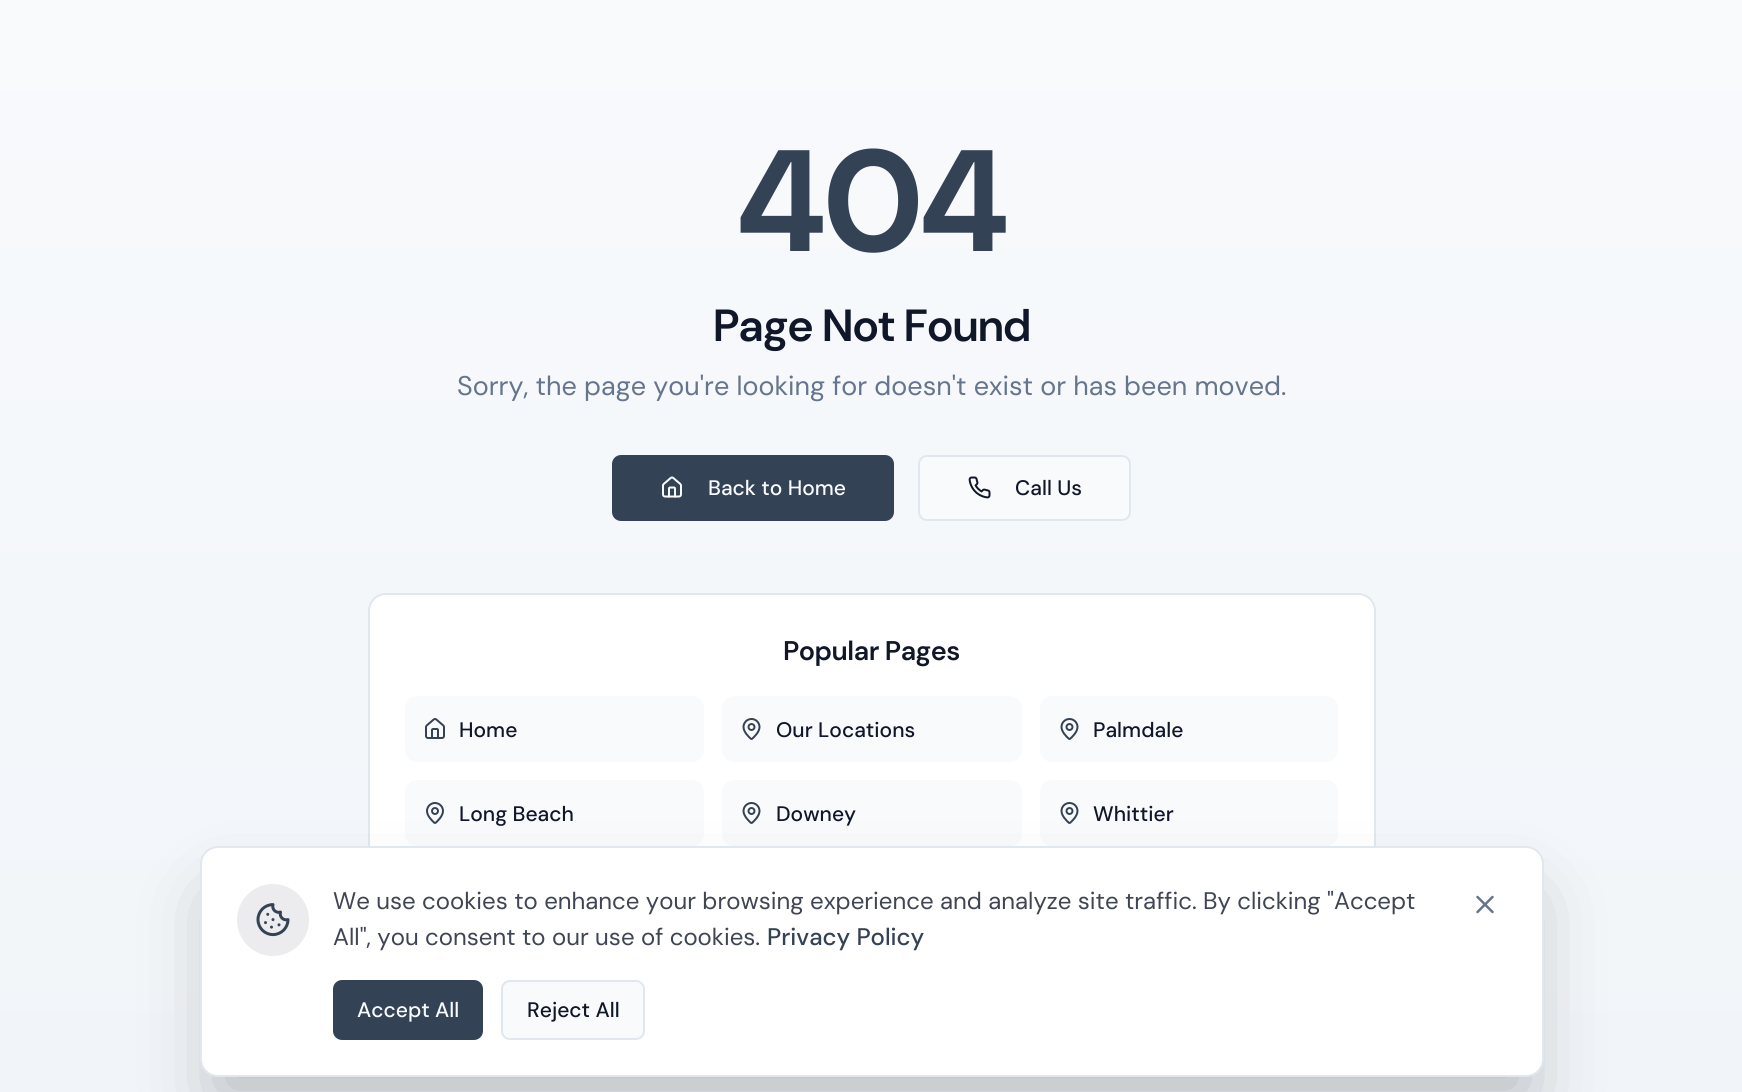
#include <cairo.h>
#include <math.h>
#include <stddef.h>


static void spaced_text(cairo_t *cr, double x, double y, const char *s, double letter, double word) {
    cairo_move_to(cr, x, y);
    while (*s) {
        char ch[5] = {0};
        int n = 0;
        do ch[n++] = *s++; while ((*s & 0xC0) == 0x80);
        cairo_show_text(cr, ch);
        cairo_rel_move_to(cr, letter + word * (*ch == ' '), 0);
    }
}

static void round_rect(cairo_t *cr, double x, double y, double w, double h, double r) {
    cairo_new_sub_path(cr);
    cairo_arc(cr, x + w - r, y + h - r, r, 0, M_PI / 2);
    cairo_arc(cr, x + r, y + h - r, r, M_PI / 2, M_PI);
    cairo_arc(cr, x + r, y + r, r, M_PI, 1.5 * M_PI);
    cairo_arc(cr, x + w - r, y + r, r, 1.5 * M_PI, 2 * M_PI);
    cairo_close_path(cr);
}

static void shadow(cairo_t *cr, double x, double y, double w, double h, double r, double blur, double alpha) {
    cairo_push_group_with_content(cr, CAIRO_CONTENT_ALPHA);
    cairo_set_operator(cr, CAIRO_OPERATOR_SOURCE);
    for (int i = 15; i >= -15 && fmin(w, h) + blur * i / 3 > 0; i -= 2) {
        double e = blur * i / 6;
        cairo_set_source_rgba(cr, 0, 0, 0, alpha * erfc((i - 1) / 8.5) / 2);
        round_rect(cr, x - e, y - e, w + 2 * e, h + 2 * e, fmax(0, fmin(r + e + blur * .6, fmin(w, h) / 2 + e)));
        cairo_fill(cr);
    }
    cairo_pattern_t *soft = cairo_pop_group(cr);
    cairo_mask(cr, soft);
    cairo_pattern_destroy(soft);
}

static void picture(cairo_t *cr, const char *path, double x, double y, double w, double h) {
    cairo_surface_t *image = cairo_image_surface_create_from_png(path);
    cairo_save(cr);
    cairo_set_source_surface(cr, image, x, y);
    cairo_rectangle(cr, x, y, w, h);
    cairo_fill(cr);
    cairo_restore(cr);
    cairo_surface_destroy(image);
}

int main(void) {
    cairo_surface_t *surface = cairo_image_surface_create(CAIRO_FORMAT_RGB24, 1742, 1092);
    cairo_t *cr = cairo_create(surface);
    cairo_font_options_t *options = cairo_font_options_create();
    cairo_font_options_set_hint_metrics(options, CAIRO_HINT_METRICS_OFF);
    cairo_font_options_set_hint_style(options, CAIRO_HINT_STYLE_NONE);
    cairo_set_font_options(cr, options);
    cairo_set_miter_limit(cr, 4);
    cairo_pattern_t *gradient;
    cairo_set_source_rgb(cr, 1, 1, 1);
    cairo_paint(cr);
    gradient = cairo_pattern_create_linear(872, 0, 872, 1092);
    cairo_pattern_add_color_stop_rgba(gradient, 0, 0.973, 0.98, 0.988, 1);
    cairo_pattern_add_color_stop_rgba(gradient, 1, 0.945, 0.961, 0.976, 1);
    cairo_set_source(cr, gradient);
    cairo_pattern_destroy(gradient);
    cairo_rectangle(cr, 0, 0, 1742, 1092);
    cairo_fill(cr);
    cairo_select_font_face(cr, "DM Sans", CAIRO_FONT_SLANT_NORMAL, CAIRO_FONT_WEIGHT_BOLD);
    cairo_set_font_size(cr, 144);
    cairo_set_source_rgb(cr, 0.204, 0.259, 0.337);
    spaced_text(cr, 737, 251, "404", -3, 0);
    cairo_select_font_face(cr, "DM Sans SemiBold", CAIRO_FONT_SLANT_NORMAL, CAIRO_FONT_WEIGHT_NORMAL);
    cairo_set_font_size(cr, 45);
    cairo_set_source_rgb(cr, 0.059, 0.09, 0.161);
    spaced_text(cr, 713, 341, "Page Not Found", -0.9, 0);
    cairo_select_font_face(cr, "DM Sans", CAIRO_FONT_SLANT_NORMAL, CAIRO_FONT_WEIGHT_NORMAL);
    cairo_set_font_size(cr, 27);
    cairo_set_source_rgb(cr, 0.396, 0.459, 0.545);
    cairo_move_to(cr, 457, 395);
    cairo_show_text(cr, "Sorry, the page you're looking for doesn't exist or has been moved.");
    cairo_set_source_rgb(cr, 0.204, 0.259, 0.337);
    round_rect(cr, 612, 455, 282, 66, 9);
    cairo_fill(cr);
    picture(cr, "img1.png", 662, 476, 20, 22);
    cairo_select_font_face(cr, "DM Sans Medium", CAIRO_FONT_SLANT_NORMAL, CAIRO_FONT_WEIGHT_NORMAL);
    cairo_set_font_size(cr, 21);
    cairo_set_source_rgb(cr, 0.973, 0.98, 0.988);
    cairo_move_to(cr, 708, 495);
    cairo_show_text(cr, "Back to Home");
    round_rect(cr, 919, 456, 211, 64, 8);
    cairo_fill_preserve(cr);
    cairo_set_source_rgb(cr, 0.882, 0.906, 0.937);
    cairo_stroke(cr);
    picture(cr, "img2.png", 968, 476, 23, 23);
    cairo_set_source_rgb(cr, 0.059, 0.09, 0.161);
    cairo_move_to(cr, 1015, 495);
    cairo_show_text(cr, "Call Us");
    cairo_set_source_rgb(cr, 1, 1, 1);
    round_rect(cr, 369, 594, 1006, 289, 17);
    cairo_fill_preserve(cr);
    cairo_set_source_rgb(cr, 0.882, 0.906, 0.937);
    cairo_stroke(cr);
    cairo_select_font_face(cr, "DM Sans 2 SemiBold", CAIRO_FONT_SLANT_NORMAL, CAIRO_FONT_WEIGHT_NORMAL);
    cairo_set_font_size(cr, 27);
    cairo_set_source_rgb(cr, 0.059, 0.09, 0.161);
    spaced_text(cr, 783, 660, "Popular Pages", -0.5, 0);
    cairo_set_source_rgb(cr, 0.973, 0.98, 0.988);
    round_rect(cr, 405, 696, 299, 66, 12);
    cairo_fill(cr);
    picture(cr, "img3.png", 425, 718, 20, 21);
    cairo_select_font_face(cr, "DM Sans Medium", CAIRO_FONT_SLANT_NORMAL, CAIRO_FONT_WEIGHT_NORMAL);
    cairo_set_font_size(cr, 21);
    cairo_set_source_rgb(cr, 0.059, 0.09, 0.161);
    cairo_move_to(cr, 459, 737);
    cairo_show_text(cr, "Home");
    cairo_set_source_rgb(cr, 0.973, 0.98, 0.988);
    round_rect(cr, 722, 696, 300, 66, 12);
    cairo_fill(cr);
    picture(cr, "img4.png", 742, 718, 19, 22);
    cairo_set_source_rgb(cr, 0.059, 0.09, 0.161);
    cairo_move_to(cr, 776, 737);
    cairo_show_text(cr, "Our Locations");
    cairo_set_source_rgb(cr, 0.973, 0.98, 0.988);
    round_rect(cr, 1040, 696, 298, 66, 12);
    cairo_fill(cr);
    picture(cr, "img4.png", 1060, 718, 19, 22);
    cairo_set_source_rgb(cr, 0.059, 0.09, 0.161);
    cairo_move_to(cr, 1093, 737);
    cairo_show_text(cr, "Palmdale");
    cairo_set_source_rgb(cr, 0.973, 0.98, 0.988);
    round_rect(cr, 405, 780, 299, 66, 12);
    cairo_fill(cr);
    picture(cr, "img5.png", 426, 802, 18, 22);
    cairo_set_source_rgb(cr, 0.059, 0.09, 0.161);
    cairo_move_to(cr, 459, 821);
    cairo_show_text(cr, "Long Beach");
    cairo_set_source_rgb(cr, 0.973, 0.98, 0.988);
    round_rect(cr, 722, 780, 300, 66, 12);
    cairo_fill(cr);
    picture(cr, "img4.png", 742, 802, 19, 22);
    cairo_set_source_rgb(cr, 0.059, 0.09, 0.161);
    cairo_move_to(cr, 776, 821);
    cairo_show_text(cr, "Downey");
    cairo_set_source_rgb(cr, 0.973, 0.98, 0.988);
    round_rect(cr, 1040, 780, 298, 66, 12);
    cairo_fill(cr);
    picture(cr, "img4.png", 1060, 802, 19, 22);
    cairo_set_source_rgb(cr, 0.059, 0.09, 0.161);
    cairo_move_to(cr, 1093, 821);
    cairo_show_text(cr, "Whittier");
    cairo_set_source_rgb(cr, 0, 0, 0);
    shadow(cr, 218, 902, 1308, 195, 0, 37.5, 0.25);
    cairo_set_source_rgb(cr, 1, 1, 1);
    round_rect(cr, 201, 847, 1342, 229, 17);
    cairo_fill_preserve(cr);
    cairo_set_source_rgb(cr, 0.882, 0.906, 0.937);
    cairo_stroke(cr);
    cairo_set_source_rgb(cr, 0.922, 0.925, 0.933);
    cairo_arc(cr, 273, 920, 36, 0, 2 * M_PI);
    cairo_fill(cr);
    picture(cr, "img6.png", 256, 903, 34, 34);
    cairo_select_font_face(cr, "DM Sans 2", CAIRO_FONT_SLANT_NORMAL, CAIRO_FONT_WEIGHT_NORMAL);
    cairo_set_font_size(cr, 24);
    cairo_set_source_rgb(cr, 0.247, 0.271, 0.329);
    cairo_move_to(cr, 333, 909);
    cairo_show_text(cr, "We use cookies to enhance your browsing experience and analyze site traffic. By clicking \"Accept");
    cairo_move_to(cr, 333, 945);
    cairo_show_text(cr, "All\", you consent to our use of cookies.");
    cairo_select_font_face(cr, "DM Sans 2 Medium", CAIRO_FONT_SLANT_NORMAL, CAIRO_FONT_WEIGHT_NORMAL);
    cairo_set_source_rgb(cr, 0.204, 0.259, 0.337);
    cairo_move_to(cr, 767, 945);
    cairo_show_text(cr, "Privacy Policy");
    round_rect(cr, 333, 980, 150, 60, 9);
    cairo_fill(cr);
    cairo_select_font_face(cr, "DM Sans Medium", CAIRO_FONT_SLANT_NORMAL, CAIRO_FONT_WEIGHT_NORMAL);
    cairo_set_font_size(cr, 21);
    cairo_set_source_rgb(cr, 0.973, 0.98, 0.988);
    cairo_move_to(cr, 357, 1017);
    cairo_show_text(cr, "Accept All");
    round_rect(cr, 502, 981, 142, 58, 8);
    cairo_fill_preserve(cr);
    cairo_set_source_rgb(cr, 0.882, 0.906, 0.937);
    cairo_stroke(cr);
    cairo_set_source_rgb(cr, 0.059, 0.09, 0.161);
    cairo_move_to(cr, 527, 1017);
    cairo_show_text(cr, "Reject All");
    cairo_new_path(cr);
    cairo_move_to(cr, 1492.5, 897);
    cairo_line_to(cr, 1477.5, 912);
    cairo_move_to(cr, 1477.5, 897);
    cairo_line_to(cr, 1492.5, 912);
    cairo_set_source_rgb(cr, 0.396, 0.459, 0.545);
    cairo_set_line_width(cr, 2.5);
    cairo_set_line_cap(cr, CAIRO_LINE_CAP_ROUND);
    cairo_set_line_join(cr, CAIRO_LINE_JOIN_ROUND);
    cairo_stroke(cr);
    cairo_surface_write_to_png(surface, "page.png");
    cairo_font_options_destroy(options);
    cairo_destroy(cr);
    cairo_surface_destroy(surface);
    return 0;
}
